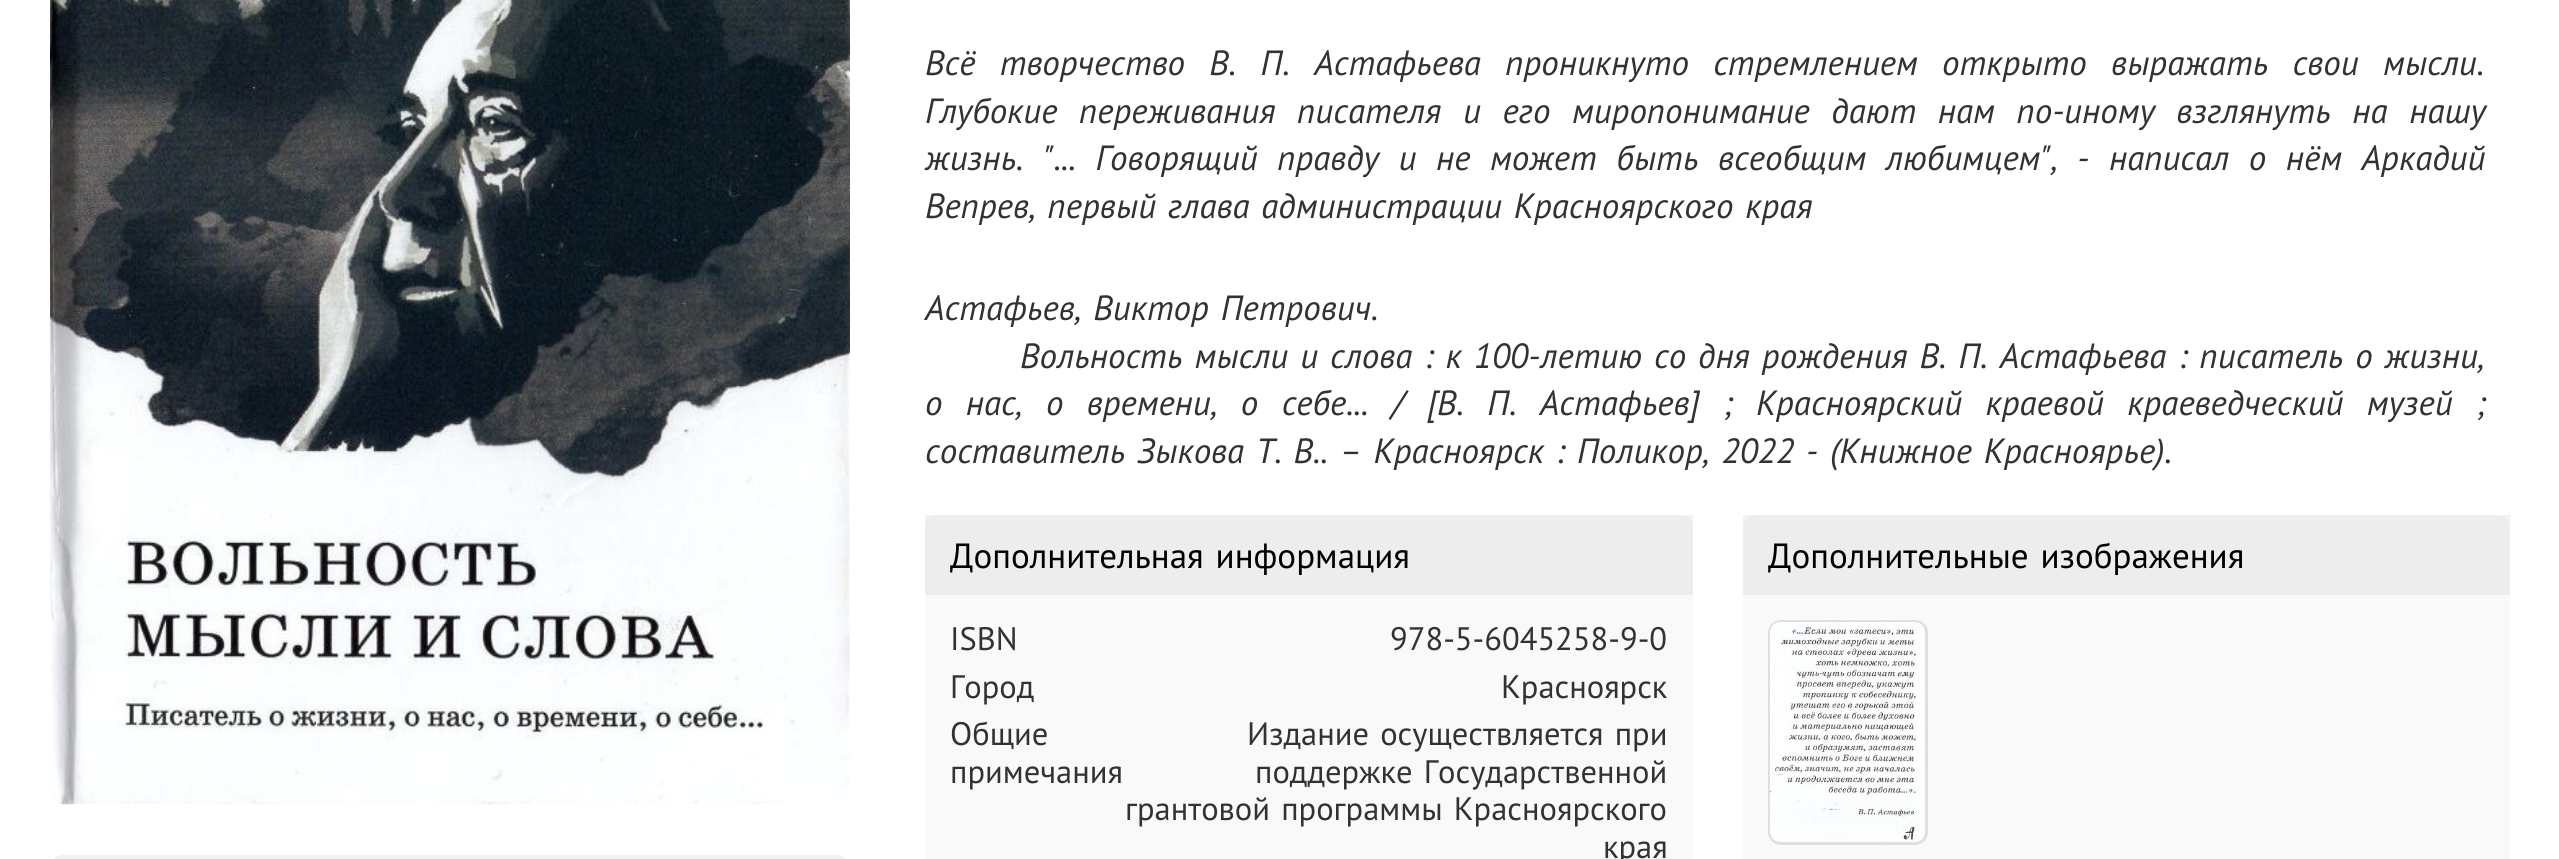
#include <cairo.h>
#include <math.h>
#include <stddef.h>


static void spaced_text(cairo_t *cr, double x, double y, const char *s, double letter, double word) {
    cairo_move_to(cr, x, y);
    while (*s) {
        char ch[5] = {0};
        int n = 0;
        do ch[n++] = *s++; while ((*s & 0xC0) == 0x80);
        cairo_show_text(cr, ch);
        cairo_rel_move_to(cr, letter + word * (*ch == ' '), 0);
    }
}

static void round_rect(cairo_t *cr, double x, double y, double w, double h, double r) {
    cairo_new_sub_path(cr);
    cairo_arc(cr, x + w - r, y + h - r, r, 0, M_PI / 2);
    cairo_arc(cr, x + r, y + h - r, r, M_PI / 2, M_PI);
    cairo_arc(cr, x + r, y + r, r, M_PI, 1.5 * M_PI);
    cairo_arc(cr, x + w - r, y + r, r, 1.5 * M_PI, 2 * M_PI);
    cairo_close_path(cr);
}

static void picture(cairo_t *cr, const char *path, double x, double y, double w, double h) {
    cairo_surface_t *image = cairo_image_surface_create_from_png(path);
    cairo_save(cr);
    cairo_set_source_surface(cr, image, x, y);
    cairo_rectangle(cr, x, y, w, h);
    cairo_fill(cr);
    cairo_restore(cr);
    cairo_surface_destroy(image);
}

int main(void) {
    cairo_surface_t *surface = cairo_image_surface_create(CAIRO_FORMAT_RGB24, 2559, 859);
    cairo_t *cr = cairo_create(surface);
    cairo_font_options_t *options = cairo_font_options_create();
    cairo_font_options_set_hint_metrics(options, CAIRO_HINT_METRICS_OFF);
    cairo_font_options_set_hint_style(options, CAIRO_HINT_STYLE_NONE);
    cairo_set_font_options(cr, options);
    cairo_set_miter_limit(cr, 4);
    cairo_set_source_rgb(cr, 1, 1, 1);
    cairo_paint(cr);
    picture(cr, "img1.png", 50, 0, 800, 805);
    cairo_set_source_rgb(cr, 0.949, 0.949, 0.949);
    round_rect(cr, 50, 855, 800, 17, 13);
    cairo_fill(cr);
    cairo_select_font_face(cr, "PT Sans", CAIRO_FONT_SLANT_ITALIC, CAIRO_FONT_WEIGHT_NORMAL);
    cairo_set_font_size(cr, 35);
    cairo_set_source_rgb(cr, 0.196, 0.196, 0.196);
    spaced_text(cr, 925, 75, "Всё творчество В. П. Астафьева проникнуто стремлением открыто выражать свои мысли.", 0, 15);
    spaced_text(cr, 925, 123, "Глубокие переживания писателя и его миропонимание дают нам по-иному взглянуть на нашу", 0, 12.25);
    spaced_text(cr, 925, 170, "жизнь. \"... Говорящий правду и не может быть всеобщим любимцем\", - написал о нём Аркадий", 0, 10.25);
    spaced_text(cr, 925, 218, "Вепрев, первый глава администрации Красноярского края", 0, 2.5);
    spaced_text(cr, 925, 320, "Астафьев, Виктор Петрович.", 0, 2.5);
    spaced_text(cr, 1020, 368, "Вольность мысли и слова : к 100-летию со дня рождения В. П. Астафьева : писатель о жизни,", 0, 2.6);
    spaced_text(cr, 925, 415, "о нас, о времени, о себе... / [В. П. Астафьев] ; Красноярский краевой краеведческий музей ;", 0, 14);
    spaced_text(cr, 925, 463, "составитель Зыкова Т. В.. – Красноярск : Поликор, 2022 - (Книжное Красноярье).", 0, 2.5);
    cairo_set_source_rgb(cr, 0.973, 0.973, 0.973);
    round_rect(cr, 925, 515, 768, 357, 13);
    cairo_fill(cr);
    cairo_set_source_rgba(cr, 0, 0, 0, 0.05);
    cairo_rectangle(cr, 925, 515, 768, 80);
    cairo_fill(cr);
    cairo_select_font_face(cr, "PT Sans", CAIRO_FONT_SLANT_NORMAL, CAIRO_FONT_WEIGHT_NORMAL);
    cairo_set_source_rgb(cr, 0, 0, 0);
    spaced_text(cr, 950, 568, "Дополнительная информация", 0, 2.5);
    cairo_set_font_size(cr, 32.5);
    cairo_set_source_rgb(cr, 0.196, 0.196, 0.196);
    cairo_move_to(cr, 950, 650);
    cairo_show_text(cr, "ISBN");
    cairo_move_to(cr, 1390, 650);
    cairo_show_text(cr, "978-5-6045258-9-0");
    cairo_move_to(cr, 950, 698);
    cairo_show_text(cr, "Город");
    cairo_move_to(cr, 1501, 698);
    cairo_show_text(cr, "Красноярск");
    cairo_move_to(cr, 950, 745);
    cairo_show_text(cr, "Общие");
    cairo_move_to(cr, 950, 783);
    cairo_show_text(cr, "примечания");
    spaced_text(cr, 1247, 745, "Издание осуществляется при", 0, 2.5);
    spaced_text(cr, 1255, 783, "поддержке Государственной", 0, 2.5);
    spaced_text(cr, 1125, 820, "грантовой программы Красноярского", 0, 2.5);
    cairo_move_to(cr, 1603, 858);
    cairo_show_text(cr, "края");
    cairo_set_source_rgb(cr, 0.973, 0.973, 0.973);
    round_rect(cr, 1743, 515, 767, 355, 13);
    cairo_fill(cr);
    cairo_set_source_rgba(cr, 0, 0, 0, 0.05);
    cairo_rectangle(cr, 1743, 515, 767, 80);
    cairo_fill(cr);
    cairo_set_font_size(cr, 35);
    cairo_set_source_rgb(cr, 0, 0, 0);
    spaced_text(cr, 1768, 568, "Дополнительные изображения", 0, 2.5);
    round_rect(cr, 1769.5, 621.5, 157, 222, 11.5);
    cairo_set_source_rgb(cr, 0.875, 0.875, 0.875);
    cairo_set_line_width(cr, 3);
    cairo_stroke(cr);
    picture(cr, "img2.png", 1770, 622, 155, 220);
    cairo_surface_write_to_png(surface, "page.png");
    cairo_font_options_destroy(options);
    cairo_destroy(cr);
    cairo_surface_destroy(surface);
    return 0;
}
